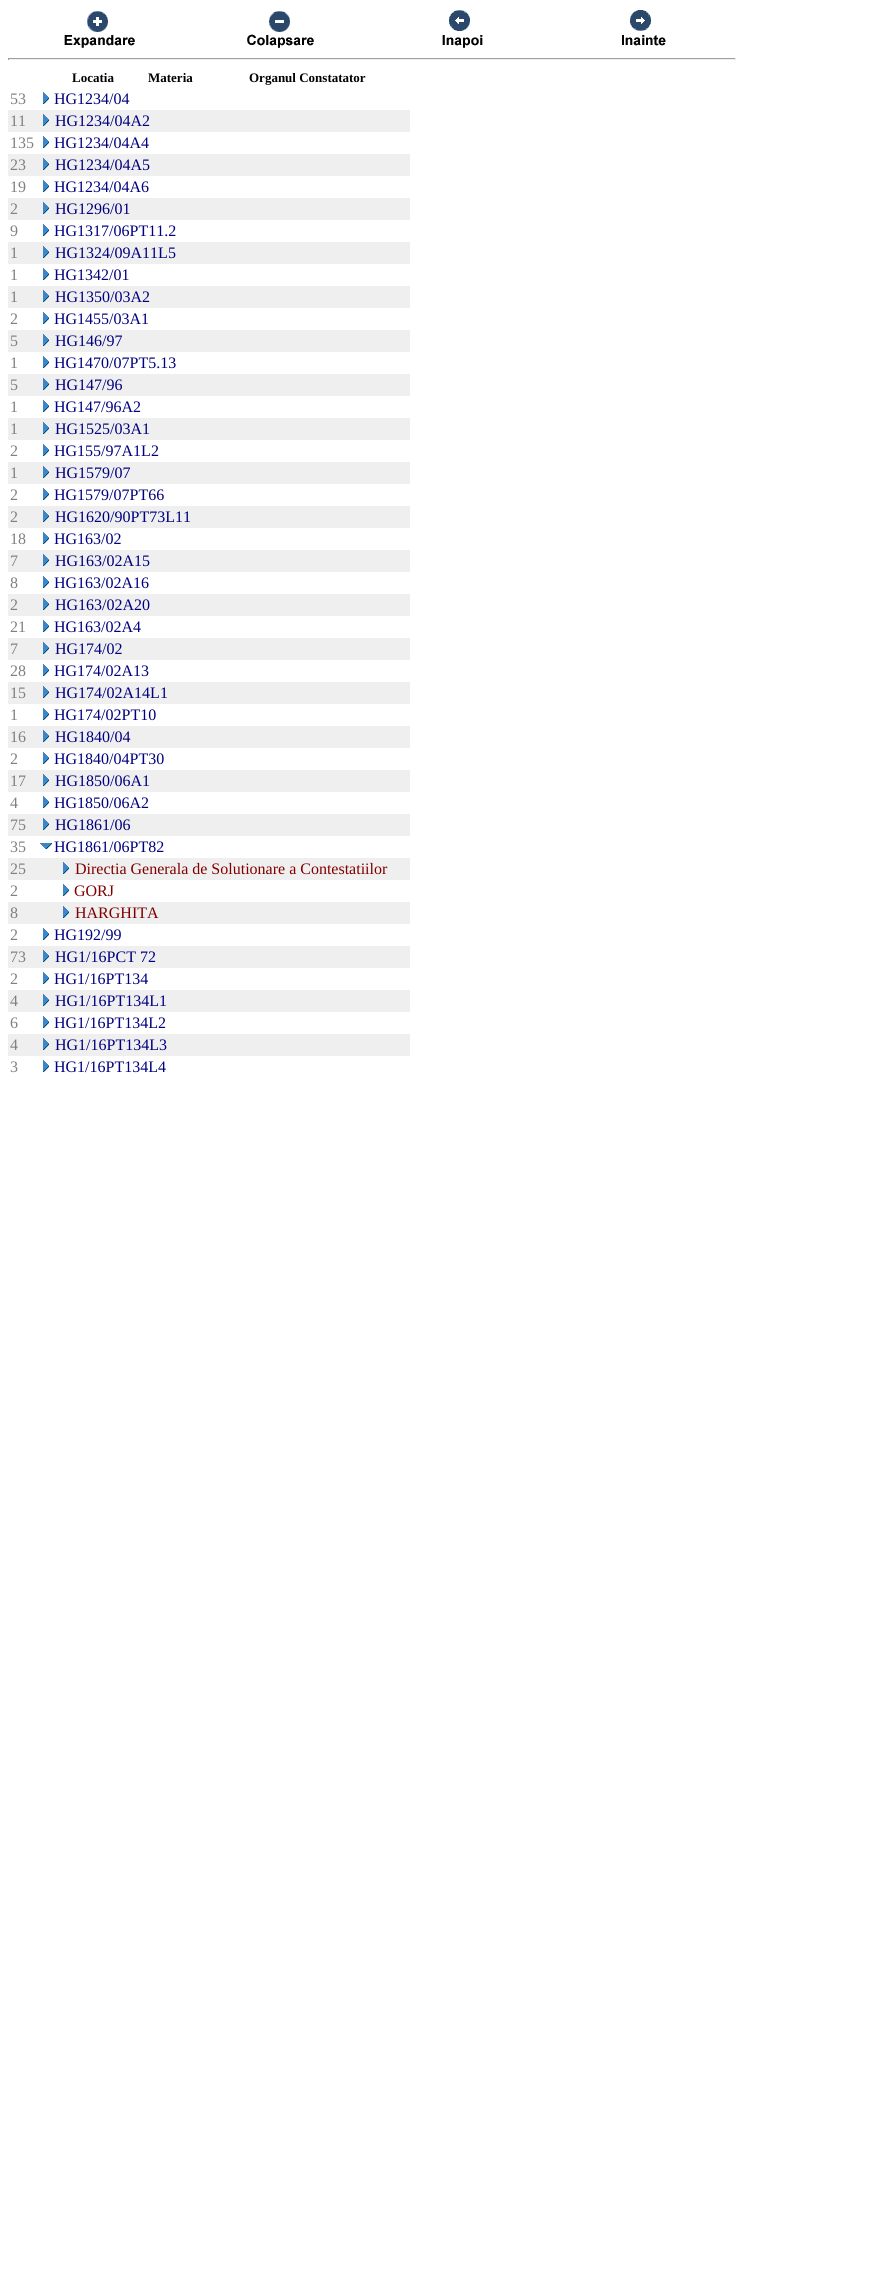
#include <cairo.h>
#include <math.h>
#include <stddef.h>


static void picture(cairo_t *cr, const char *path, double x, double y, double w, double h) {
    cairo_surface_t *image = cairo_image_surface_create_from_png(path);
    cairo_save(cr);
    cairo_set_source_surface(cr, image, x, y);
    cairo_rectangle(cr, x, y, w, h);
    cairo_fill(cr);
    cairo_restore(cr);
    cairo_surface_destroy(image);
}

int main(void) {
    cairo_surface_t *surface = cairo_image_surface_create(CAIRO_FORMAT_RGB24, 887, 2281);
    cairo_t *cr = cairo_create(surface);
    cairo_font_options_t *options = cairo_font_options_create();
    cairo_font_options_set_hint_metrics(options, CAIRO_HINT_METRICS_OFF);
    cairo_font_options_set_hint_style(options, CAIRO_HINT_STYLE_NONE);
    cairo_set_font_options(cr, options);
    cairo_set_miter_limit(cr, 4);
    cairo_set_source_rgb(cr, 1, 1, 1);
    cairo_paint(cr);
    picture(cr, "img1.png", 64, 11, 71, 37);
    picture(cr, "img2.png", 247, 11, 67, 37);
    picture(cr, "img3.png", 442, 10, 41, 38);
    picture(cr, "img4.png", 622, 10, 44, 36);
    cairo_set_source_rgb(cr, 0.624, 0.624, 0.624);
    cairo_rectangle(cr, 8, 58, 728, 1);
    cairo_fill(cr);
    cairo_set_source_rgb(cr, 0.933, 0.933, 0.933);
    cairo_rectangle(cr, 735, 58, 1, 2);
    cairo_fill(cr);
    cairo_rectangle(cr, 8, 59, 728, 1);
    cairo_fill(cr);
    cairo_set_source_rgb(cr, 0.624, 0.624, 0.624);
    cairo_rectangle(cr, 8, 58, 1, 2);
    cairo_fill(cr);
    cairo_select_font_face(cr, "Liberation Serif", CAIRO_FONT_SLANT_NORMAL, CAIRO_FONT_WEIGHT_BOLD);
    cairo_set_font_size(cr, 13);
    cairo_set_source_rgb(cr, 0, 0, 0);
    cairo_move_to(cr, 72, 82);
    cairo_show_text(cr, "Locatia");
    cairo_move_to(cr, 148, 82);
    cairo_show_text(cr, "Materia");
    cairo_move_to(cr, 249, 82);
    cairo_show_text(cr, "Organul Constatator");
    cairo_select_font_face(cr, "Liberation Serif", CAIRO_FONT_SLANT_NORMAL, CAIRO_FONT_WEIGHT_NORMAL);
    cairo_set_font_size(cr, 16);
    cairo_set_source_rgb(cr, 0.502, 0.502, 0.502);
    cairo_move_to(cr, 10, 104);
    cairo_show_text(cr, "53");
    picture(cr, "img5.png", 43, 92, 6, 12);
    cairo_set_source_rgb(cr, 0, 0, 0.502);
    cairo_move_to(cr, 54, 104);
    cairo_show_text(cr, "HG1234/04");
    cairo_set_source_rgb(cr, 0.937, 0.937, 0.937);
    cairo_rectangle(cr, 8, 110, 402, 22);
    cairo_fill(cr);
    cairo_set_source_rgb(cr, 0.502, 0.502, 0.502);
    cairo_move_to(cr, 10, 126);
    cairo_show_text(cr, "11");
    picture(cr, "img6.png", 43, 114, 6, 12);
    cairo_set_source_rgb(cr, 0, 0, 0.502);
    cairo_move_to(cr, 55, 126);
    cairo_show_text(cr, "HG1234/04A2");
    cairo_set_source_rgb(cr, 0.502, 0.502, 0.502);
    cairo_move_to(cr, 10, 148);
    cairo_show_text(cr, "135");
    picture(cr, "img5.png", 43, 136, 6, 12);
    cairo_set_source_rgb(cr, 0, 0, 0.502);
    cairo_move_to(cr, 54, 148);
    cairo_show_text(cr, "HG1234/04A4");
    cairo_set_source_rgb(cr, 0.937, 0.937, 0.937);
    cairo_rectangle(cr, 8, 154, 402, 22);
    cairo_fill(cr);
    cairo_set_source_rgb(cr, 0.502, 0.502, 0.502);
    cairo_move_to(cr, 10, 170);
    cairo_show_text(cr, "23");
    picture(cr, "img6.png", 43, 158, 6, 12);
    cairo_set_source_rgb(cr, 0, 0, 0.502);
    cairo_move_to(cr, 55, 170);
    cairo_show_text(cr, "HG1234/04A5");
    cairo_set_source_rgb(cr, 0.502, 0.502, 0.502);
    cairo_move_to(cr, 10, 192);
    cairo_show_text(cr, "19");
    picture(cr, "img5.png", 43, 180, 6, 12);
    cairo_set_source_rgb(cr, 0, 0, 0.502);
    cairo_move_to(cr, 54, 192);
    cairo_show_text(cr, "HG1234/04A6");
    cairo_set_source_rgb(cr, 0.937, 0.937, 0.937);
    cairo_rectangle(cr, 8, 198, 402, 22);
    cairo_fill(cr);
    cairo_set_source_rgb(cr, 0.502, 0.502, 0.502);
    cairo_move_to(cr, 10, 214);
    cairo_show_text(cr, "2");
    picture(cr, "img6.png", 43, 202, 6, 12);
    cairo_set_source_rgb(cr, 0, 0, 0.502);
    cairo_move_to(cr, 55, 214);
    cairo_show_text(cr, "HG1296/01");
    cairo_set_source_rgb(cr, 0.502, 0.502, 0.502);
    cairo_move_to(cr, 10, 236);
    cairo_show_text(cr, "9");
    picture(cr, "img5.png", 43, 224, 6, 12);
    cairo_set_source_rgb(cr, 0, 0, 0.502);
    cairo_move_to(cr, 54, 236);
    cairo_show_text(cr, "HG1317/06PT11.2");
    cairo_set_source_rgb(cr, 0.937, 0.937, 0.937);
    cairo_rectangle(cr, 8, 242, 402, 22);
    cairo_fill(cr);
    cairo_set_source_rgb(cr, 0.502, 0.502, 0.502);
    cairo_move_to(cr, 10, 258);
    cairo_show_text(cr, "1");
    picture(cr, "img6.png", 43, 246, 6, 12);
    cairo_set_source_rgb(cr, 0, 0, 0.502);
    cairo_move_to(cr, 55, 258);
    cairo_show_text(cr, "HG1324/09A11L5");
    cairo_set_source_rgb(cr, 0.502, 0.502, 0.502);
    cairo_move_to(cr, 10, 280);
    cairo_show_text(cr, "1");
    picture(cr, "img5.png", 43, 268, 6, 12);
    cairo_set_source_rgb(cr, 0, 0, 0.502);
    cairo_move_to(cr, 54, 280);
    cairo_show_text(cr, "HG1342/01");
    cairo_set_source_rgb(cr, 0.937, 0.937, 0.937);
    cairo_rectangle(cr, 8, 286, 402, 22);
    cairo_fill(cr);
    cairo_set_source_rgb(cr, 0.502, 0.502, 0.502);
    cairo_move_to(cr, 10, 302);
    cairo_show_text(cr, "1");
    picture(cr, "img6.png", 43, 290, 6, 12);
    cairo_set_source_rgb(cr, 0, 0, 0.502);
    cairo_move_to(cr, 55, 302);
    cairo_show_text(cr, "HG1350/03A2");
    cairo_set_source_rgb(cr, 0.502, 0.502, 0.502);
    cairo_move_to(cr, 10, 324);
    cairo_show_text(cr, "2");
    picture(cr, "img5.png", 43, 312, 6, 12);
    cairo_set_source_rgb(cr, 0, 0, 0.502);
    cairo_move_to(cr, 54, 324);
    cairo_show_text(cr, "HG1455/03A1");
    cairo_set_source_rgb(cr, 0.937, 0.937, 0.937);
    cairo_rectangle(cr, 8, 330, 402, 22);
    cairo_fill(cr);
    cairo_set_source_rgb(cr, 0.502, 0.502, 0.502);
    cairo_move_to(cr, 10, 346);
    cairo_show_text(cr, "5");
    picture(cr, "img6.png", 43, 334, 6, 12);
    cairo_set_source_rgb(cr, 0, 0, 0.502);
    cairo_move_to(cr, 55, 346);
    cairo_show_text(cr, "HG146/97");
    cairo_set_source_rgb(cr, 0.502, 0.502, 0.502);
    cairo_move_to(cr, 10, 368);
    cairo_show_text(cr, "1");
    picture(cr, "img5.png", 43, 356, 6, 12);
    cairo_set_source_rgb(cr, 0, 0, 0.502);
    cairo_move_to(cr, 54, 368);
    cairo_show_text(cr, "HG1470/07PT5.13");
    cairo_set_source_rgb(cr, 0.937, 0.937, 0.937);
    cairo_rectangle(cr, 8, 374, 402, 22);
    cairo_fill(cr);
    cairo_set_source_rgb(cr, 0.502, 0.502, 0.502);
    cairo_move_to(cr, 10, 390);
    cairo_show_text(cr, "5");
    picture(cr, "img6.png", 43, 378, 6, 12);
    cairo_set_source_rgb(cr, 0, 0, 0.502);
    cairo_move_to(cr, 55, 390);
    cairo_show_text(cr, "HG147/96");
    cairo_set_source_rgb(cr, 0.502, 0.502, 0.502);
    cairo_move_to(cr, 10, 412);
    cairo_show_text(cr, "1");
    picture(cr, "img5.png", 43, 400, 6, 12);
    cairo_set_source_rgb(cr, 0, 0, 0.502);
    cairo_move_to(cr, 54, 412);
    cairo_show_text(cr, "HG147/96A2");
    cairo_set_source_rgb(cr, 0.937, 0.937, 0.937);
    cairo_rectangle(cr, 8, 418, 402, 22);
    cairo_fill(cr);
    cairo_set_source_rgb(cr, 0.502, 0.502, 0.502);
    cairo_move_to(cr, 10, 434);
    cairo_show_text(cr, "1");
    picture(cr, "img6.png", 43, 422, 6, 12);
    cairo_set_source_rgb(cr, 0, 0, 0.502);
    cairo_move_to(cr, 55, 434);
    cairo_show_text(cr, "HG1525/03A1");
    cairo_set_source_rgb(cr, 0.502, 0.502, 0.502);
    cairo_move_to(cr, 10, 456);
    cairo_show_text(cr, "2");
    picture(cr, "img5.png", 43, 444, 6, 12);
    cairo_set_source_rgb(cr, 0, 0, 0.502);
    cairo_move_to(cr, 54, 456);
    cairo_show_text(cr, "HG155/97A1L2");
    cairo_set_source_rgb(cr, 0.937, 0.937, 0.937);
    cairo_rectangle(cr, 8, 462, 402, 22);
    cairo_fill(cr);
    cairo_set_source_rgb(cr, 0.502, 0.502, 0.502);
    cairo_move_to(cr, 10, 478);
    cairo_show_text(cr, "1");
    picture(cr, "img6.png", 43, 466, 6, 12);
    cairo_set_source_rgb(cr, 0, 0, 0.502);
    cairo_move_to(cr, 55, 478);
    cairo_show_text(cr, "HG1579/07");
    cairo_set_source_rgb(cr, 0.502, 0.502, 0.502);
    cairo_move_to(cr, 10, 500);
    cairo_show_text(cr, "2");
    picture(cr, "img5.png", 43, 488, 6, 12);
    cairo_set_source_rgb(cr, 0, 0, 0.502);
    cairo_move_to(cr, 54, 500);
    cairo_show_text(cr, "HG1579/07PT66");
    cairo_set_source_rgb(cr, 0.937, 0.937, 0.937);
    cairo_rectangle(cr, 8, 506, 402, 22);
    cairo_fill(cr);
    cairo_set_source_rgb(cr, 0.502, 0.502, 0.502);
    cairo_move_to(cr, 10, 522);
    cairo_show_text(cr, "2");
    picture(cr, "img6.png", 43, 510, 6, 12);
    cairo_set_source_rgb(cr, 0, 0, 0.502);
    cairo_move_to(cr, 55, 522);
    cairo_show_text(cr, "HG1620/90PT73L11");
    cairo_set_source_rgb(cr, 0.502, 0.502, 0.502);
    cairo_move_to(cr, 10, 544);
    cairo_show_text(cr, "18");
    picture(cr, "img5.png", 43, 532, 6, 12);
    cairo_set_source_rgb(cr, 0, 0, 0.502);
    cairo_move_to(cr, 54, 544);
    cairo_show_text(cr, "HG163/02");
    cairo_set_source_rgb(cr, 0.937, 0.937, 0.937);
    cairo_rectangle(cr, 8, 550, 402, 22);
    cairo_fill(cr);
    cairo_set_source_rgb(cr, 0.502, 0.502, 0.502);
    cairo_move_to(cr, 10, 566);
    cairo_show_text(cr, "7");
    picture(cr, "img6.png", 43, 554, 6, 12);
    cairo_set_source_rgb(cr, 0, 0, 0.502);
    cairo_move_to(cr, 55, 566);
    cairo_show_text(cr, "HG163/02A15");
    cairo_set_source_rgb(cr, 0.502, 0.502, 0.502);
    cairo_move_to(cr, 10, 588);
    cairo_show_text(cr, "8");
    picture(cr, "img5.png", 43, 576, 6, 12);
    cairo_set_source_rgb(cr, 0, 0, 0.502);
    cairo_move_to(cr, 54, 588);
    cairo_show_text(cr, "HG163/02A16");
    cairo_set_source_rgb(cr, 0.937, 0.937, 0.937);
    cairo_rectangle(cr, 8, 594, 402, 22);
    cairo_fill(cr);
    cairo_set_source_rgb(cr, 0.502, 0.502, 0.502);
    cairo_move_to(cr, 10, 610);
    cairo_show_text(cr, "2");
    picture(cr, "img6.png", 43, 598, 6, 12);
    cairo_set_source_rgb(cr, 0, 0, 0.502);
    cairo_move_to(cr, 55, 610);
    cairo_show_text(cr, "HG163/02A20");
    cairo_set_source_rgb(cr, 0.502, 0.502, 0.502);
    cairo_move_to(cr, 10, 632);
    cairo_show_text(cr, "21");
    picture(cr, "img5.png", 43, 620, 6, 12);
    cairo_set_source_rgb(cr, 0, 0, 0.502);
    cairo_move_to(cr, 54, 632);
    cairo_show_text(cr, "HG163/02A4");
    cairo_set_source_rgb(cr, 0.937, 0.937, 0.937);
    cairo_rectangle(cr, 8, 638, 402, 22);
    cairo_fill(cr);
    cairo_set_source_rgb(cr, 0.502, 0.502, 0.502);
    cairo_move_to(cr, 10, 654);
    cairo_show_text(cr, "7");
    picture(cr, "img6.png", 43, 642, 6, 12);
    cairo_set_source_rgb(cr, 0, 0, 0.502);
    cairo_move_to(cr, 55, 654);
    cairo_show_text(cr, "HG174/02");
    cairo_set_source_rgb(cr, 0.502, 0.502, 0.502);
    cairo_move_to(cr, 10, 676);
    cairo_show_text(cr, "28");
    picture(cr, "img5.png", 43, 664, 6, 12);
    cairo_set_source_rgb(cr, 0, 0, 0.502);
    cairo_move_to(cr, 54, 676);
    cairo_show_text(cr, "HG174/02A13");
    cairo_set_source_rgb(cr, 0.937, 0.937, 0.937);
    cairo_rectangle(cr, 8, 682, 402, 22);
    cairo_fill(cr);
    cairo_set_source_rgb(cr, 0.502, 0.502, 0.502);
    cairo_move_to(cr, 10, 698);
    cairo_show_text(cr, "15");
    picture(cr, "img6.png", 43, 686, 6, 12);
    cairo_set_source_rgb(cr, 0, 0, 0.502);
    cairo_move_to(cr, 55, 698);
    cairo_show_text(cr, "HG174/02A14L1");
    cairo_set_source_rgb(cr, 0.502, 0.502, 0.502);
    cairo_move_to(cr, 10, 720);
    cairo_show_text(cr, "1");
    picture(cr, "img5.png", 43, 708, 6, 12);
    cairo_set_source_rgb(cr, 0, 0, 0.502);
    cairo_move_to(cr, 54, 720);
    cairo_show_text(cr, "HG174/02PT10");
    cairo_set_source_rgb(cr, 0.937, 0.937, 0.937);
    cairo_rectangle(cr, 8, 726, 402, 22);
    cairo_fill(cr);
    cairo_set_source_rgb(cr, 0.502, 0.502, 0.502);
    cairo_move_to(cr, 10, 742);
    cairo_show_text(cr, "16");
    picture(cr, "img6.png", 43, 730, 6, 12);
    cairo_set_source_rgb(cr, 0, 0, 0.502);
    cairo_move_to(cr, 55, 742);
    cairo_show_text(cr, "HG1840/04");
    cairo_set_source_rgb(cr, 0.502, 0.502, 0.502);
    cairo_move_to(cr, 10, 764);
    cairo_show_text(cr, "2");
    picture(cr, "img5.png", 43, 752, 6, 12);
    cairo_set_source_rgb(cr, 0, 0, 0.502);
    cairo_move_to(cr, 54, 764);
    cairo_show_text(cr, "HG1840/04PT30");
    cairo_set_source_rgb(cr, 0.937, 0.937, 0.937);
    cairo_rectangle(cr, 8, 770, 402, 22);
    cairo_fill(cr);
    cairo_set_source_rgb(cr, 0.502, 0.502, 0.502);
    cairo_move_to(cr, 10, 786);
    cairo_show_text(cr, "17");
    picture(cr, "img6.png", 43, 774, 6, 12);
    cairo_set_source_rgb(cr, 0, 0, 0.502);
    cairo_move_to(cr, 55, 786);
    cairo_show_text(cr, "HG1850/06A1");
    cairo_set_source_rgb(cr, 0.502, 0.502, 0.502);
    cairo_move_to(cr, 10, 808);
    cairo_show_text(cr, "4");
    picture(cr, "img5.png", 43, 796, 6, 12);
    cairo_set_source_rgb(cr, 0, 0, 0.502);
    cairo_move_to(cr, 54, 808);
    cairo_show_text(cr, "HG1850/06A2");
    cairo_set_source_rgb(cr, 0.937, 0.937, 0.937);
    cairo_rectangle(cr, 8, 814, 402, 22);
    cairo_fill(cr);
    cairo_set_source_rgb(cr, 0.502, 0.502, 0.502);
    cairo_move_to(cr, 10, 830);
    cairo_show_text(cr, "75");
    picture(cr, "img6.png", 43, 818, 6, 12);
    cairo_set_source_rgb(cr, 0, 0, 0.502);
    cairo_move_to(cr, 55, 830);
    cairo_show_text(cr, "HG1861/06");
    cairo_set_source_rgb(cr, 0.502, 0.502, 0.502);
    cairo_move_to(cr, 10, 852);
    cairo_show_text(cr, "35");
    picture(cr, "img7.png", 40, 843, 12, 6);
    cairo_set_source_rgb(cr, 0, 0, 0.502);
    cairo_move_to(cr, 54, 852);
    cairo_show_text(cr, "HG1861/06PT82");
    cairo_set_source_rgb(cr, 0.937, 0.937, 0.937);
    cairo_rectangle(cr, 8, 858, 402, 22);
    cairo_fill(cr);
    cairo_set_source_rgb(cr, 0.502, 0.502, 0.502);
    cairo_move_to(cr, 10, 874);
    cairo_show_text(cr, "25");
    picture(cr, "img6.png", 63, 862, 6, 12);
    cairo_set_source_rgb(cr, 0.502, 0, 0);
    cairo_move_to(cr, 75, 874);
    cairo_show_text(cr, "Directia Generala de Solutionare a Contestatiilor");
    cairo_set_source_rgb(cr, 0.502, 0.502, 0.502);
    cairo_move_to(cr, 10, 896);
    cairo_show_text(cr, "2");
    picture(cr, "img5.png", 63, 884, 6, 12);
    cairo_set_source_rgb(cr, 0.502, 0, 0);
    cairo_move_to(cr, 74, 896);
    cairo_show_text(cr, "GORJ");
    cairo_set_source_rgb(cr, 0.937, 0.937, 0.937);
    cairo_rectangle(cr, 8, 902, 402, 22);
    cairo_fill(cr);
    cairo_set_source_rgb(cr, 0.502, 0.502, 0.502);
    cairo_move_to(cr, 10, 918);
    cairo_show_text(cr, "8");
    picture(cr, "img6.png", 63, 906, 6, 12);
    cairo_set_source_rgb(cr, 0.502, 0, 0);
    cairo_move_to(cr, 75, 918);
    cairo_show_text(cr, "HARGHITA");
    cairo_set_source_rgb(cr, 0.502, 0.502, 0.502);
    cairo_move_to(cr, 10, 940);
    cairo_show_text(cr, "2");
    picture(cr, "img5.png", 43, 928, 6, 12);
    cairo_set_source_rgb(cr, 0, 0, 0.502);
    cairo_move_to(cr, 54, 940);
    cairo_show_text(cr, "HG192/99");
    cairo_set_source_rgb(cr, 0.937, 0.937, 0.937);
    cairo_rectangle(cr, 8, 946, 402, 22);
    cairo_fill(cr);
    cairo_set_source_rgb(cr, 0.502, 0.502, 0.502);
    cairo_move_to(cr, 10, 962);
    cairo_show_text(cr, "73");
    picture(cr, "img6.png", 43, 950, 6, 12);
    cairo_set_source_rgb(cr, 0, 0, 0.502);
    cairo_move_to(cr, 55, 962);
    cairo_show_text(cr, "HG1/16PCT 72");
    cairo_set_source_rgb(cr, 0.502, 0.502, 0.502);
    cairo_move_to(cr, 10, 984);
    cairo_show_text(cr, "2");
    picture(cr, "img5.png", 43, 972, 6, 12);
    cairo_set_source_rgb(cr, 0, 0, 0.502);
    cairo_move_to(cr, 54, 984);
    cairo_show_text(cr, "HG1/16PT134");
    cairo_set_source_rgb(cr, 0.937, 0.937, 0.937);
    cairo_rectangle(cr, 8, 990, 402, 22);
    cairo_fill(cr);
    cairo_set_source_rgb(cr, 0.502, 0.502, 0.502);
    cairo_move_to(cr, 10, 1006);
    cairo_show_text(cr, "4");
    picture(cr, "img6.png", 43, 994, 6, 12);
    cairo_set_source_rgb(cr, 0, 0, 0.502);
    cairo_move_to(cr, 55, 1006);
    cairo_show_text(cr, "HG1/16PT134L1");
    cairo_set_source_rgb(cr, 0.502, 0.502, 0.502);
    cairo_move_to(cr, 10, 1028);
    cairo_show_text(cr, "6");
    picture(cr, "img5.png", 43, 1016, 6, 12);
    cairo_set_source_rgb(cr, 0, 0, 0.502);
    cairo_move_to(cr, 54, 1028);
    cairo_show_text(cr, "HG1/16PT134L2");
    cairo_set_source_rgb(cr, 0.937, 0.937, 0.937);
    cairo_rectangle(cr, 8, 1034, 402, 22);
    cairo_fill(cr);
    cairo_set_source_rgb(cr, 0.502, 0.502, 0.502);
    cairo_move_to(cr, 10, 1050);
    cairo_show_text(cr, "4");
    picture(cr, "img6.png", 43, 1038, 6, 12);
    cairo_set_source_rgb(cr, 0, 0, 0.502);
    cairo_move_to(cr, 55, 1050);
    cairo_show_text(cr, "HG1/16PT134L3");
    cairo_set_source_rgb(cr, 0.502, 0.502, 0.502);
    cairo_move_to(cr, 10, 1072);
    cairo_show_text(cr, "3");
    picture(cr, "img5.png", 43, 1060, 6, 12);
    cairo_set_source_rgb(cr, 0, 0, 0.502);
    cairo_move_to(cr, 54, 1072);
    cairo_show_text(cr, "HG1/16PT134L4");
    cairo_surface_write_to_png(surface, "page.png");
    cairo_font_options_destroy(options);
    cairo_destroy(cr);
    cairo_surface_destroy(surface);
    return 0;
}
